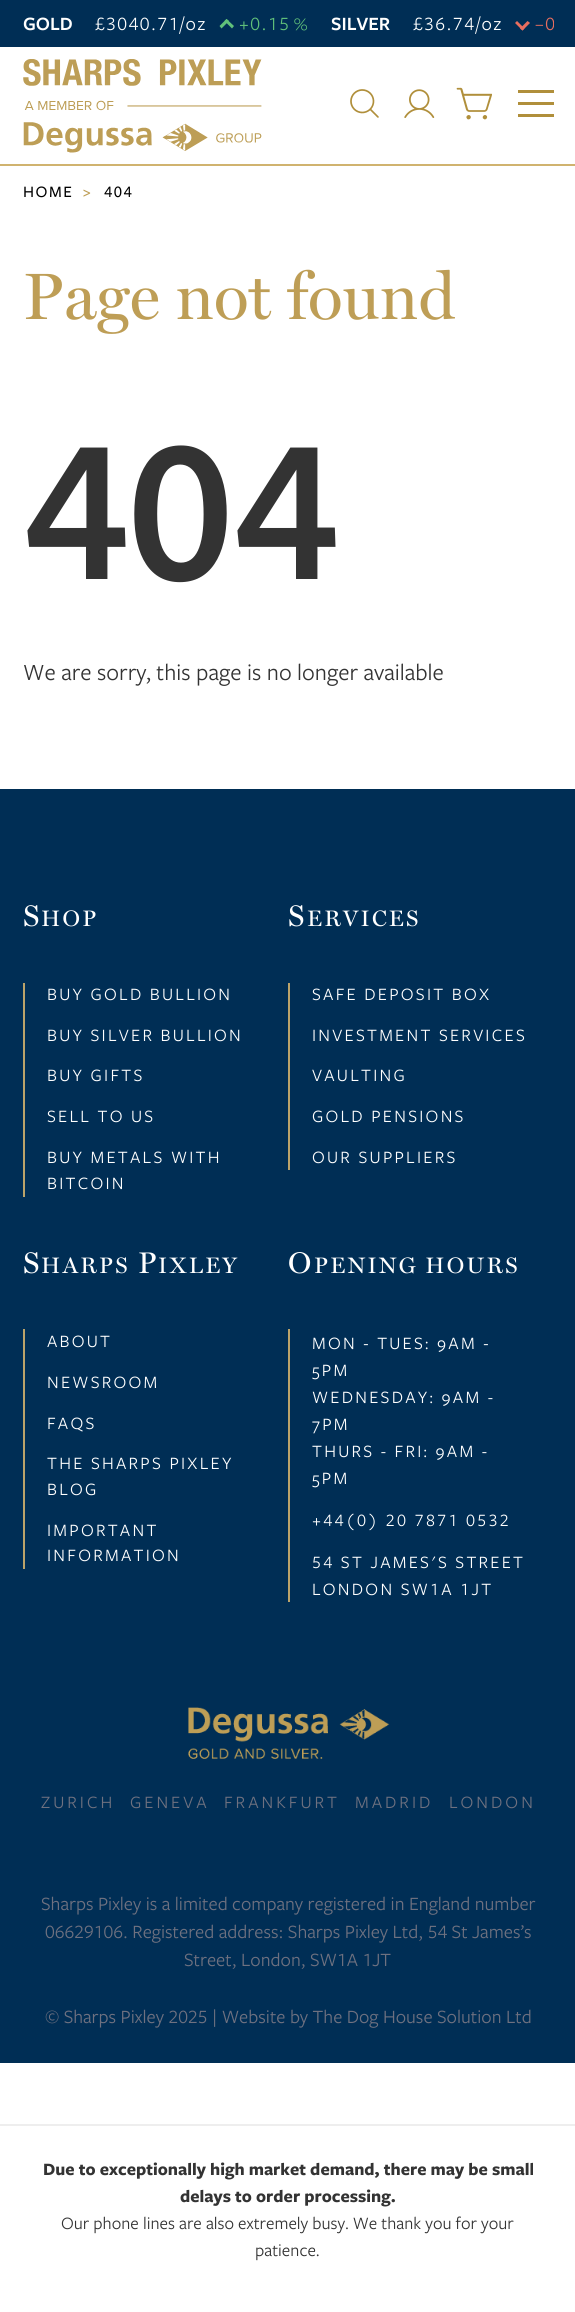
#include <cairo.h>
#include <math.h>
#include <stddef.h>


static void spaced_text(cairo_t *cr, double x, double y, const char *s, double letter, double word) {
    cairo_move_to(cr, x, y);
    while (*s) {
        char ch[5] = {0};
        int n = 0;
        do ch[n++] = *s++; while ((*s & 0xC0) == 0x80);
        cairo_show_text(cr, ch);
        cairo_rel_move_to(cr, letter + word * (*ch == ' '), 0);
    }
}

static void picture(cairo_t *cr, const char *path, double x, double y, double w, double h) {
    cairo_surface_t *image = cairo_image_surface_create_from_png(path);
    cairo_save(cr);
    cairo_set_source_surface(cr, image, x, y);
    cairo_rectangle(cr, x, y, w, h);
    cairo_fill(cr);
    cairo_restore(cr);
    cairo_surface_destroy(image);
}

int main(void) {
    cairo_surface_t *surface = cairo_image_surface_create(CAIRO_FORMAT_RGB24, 575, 2312);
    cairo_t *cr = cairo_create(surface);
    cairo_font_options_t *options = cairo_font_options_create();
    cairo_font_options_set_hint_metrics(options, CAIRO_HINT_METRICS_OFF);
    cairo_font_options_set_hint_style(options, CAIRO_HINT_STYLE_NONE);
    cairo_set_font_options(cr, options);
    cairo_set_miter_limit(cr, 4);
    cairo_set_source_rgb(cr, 1, 1, 1);
    cairo_paint(cr);
    cairo_set_source_rgb(cr, 0, 0.18, 0.333);
    cairo_rectangle(cr, 0, 0, 575, 47);
    cairo_fill(cr);
    cairo_select_font_face(cr, "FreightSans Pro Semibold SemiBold", CAIRO_FONT_SLANT_NORMAL, CAIRO_FONT_WEIGHT_NORMAL);
    cairo_set_font_size(cr, 19.5);
    cairo_set_source_rgb(cr, 1, 1, 1);
    cairo_move_to(cr, 23, 30);
    cairo_show_text(cr, "GOLD");
    cairo_select_font_face(cr, "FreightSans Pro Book", CAIRO_FONT_SLANT_NORMAL, CAIRO_FONT_WEIGHT_NORMAL);
    spaced_text(cr, 95, 30, "£", 1.5, 0);
    cairo_select_font_face(cr, "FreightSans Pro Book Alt", CAIRO_FONT_SLANT_NORMAL, CAIRO_FONT_WEIGHT_NORMAL);
    spaced_text(cr, 106, 30, "3040.71", 1.5, 0);
    cairo_select_font_face(cr, "FreightSans Pro Book", CAIRO_FONT_SLANT_NORMAL, CAIRO_FONT_WEIGHT_NORMAL);
    spaced_text(cr, 180, 30, "/oz", 1.5, 0);
    cairo_set_source_rgb(cr, 0.38, 0.757, 0.478);
    cairo_new_path(cr);
    cairo_move_to(cr, 229, 21);
    cairo_line_to(cr, 221.5, 28.5);
    cairo_line_to(cr, 219.5, 26);
    cairo_line_to(cr, 226.5, 19);
    cairo_close_path(cr);
    cairo_fill(cr);
    cairo_new_path(cr);
    cairo_move_to(cr, 234, 26);
    cairo_line_to(cr, 232, 28.5);
    cairo_line_to(cr, 224.5, 21);
    cairo_line_to(cr, 226.5, 19);
    cairo_close_path(cr);
    cairo_fill(cr);
    cairo_select_font_face(cr, "FreightSans Pro Book Alt", CAIRO_FONT_SLANT_NORMAL, CAIRO_FONT_WEIGHT_NORMAL);
    spaced_text(cr, 239, 30, "+0.15", 1.5, 0);
    cairo_select_font_face(cr, "FreightSans Pro Book", CAIRO_FONT_SLANT_NORMAL, CAIRO_FONT_WEIGHT_NORMAL);
    cairo_set_font_size(cr, 18);
    spaced_text(cr, 294, 30, "%", 1.5, 0);
    cairo_select_font_face(cr, "FreightSans Pro Semibold SemiBold", CAIRO_FONT_SLANT_NORMAL, CAIRO_FONT_WEIGHT_NORMAL);
    cairo_set_font_size(cr, 19.5);
    cairo_set_source_rgb(cr, 1, 1, 1);
    cairo_move_to(cr, 331, 30);
    cairo_show_text(cr, "SILVER");
    cairo_select_font_face(cr, "FreightSans Pro Book", CAIRO_FONT_SLANT_NORMAL, CAIRO_FONT_WEIGHT_NORMAL);
    spaced_text(cr, 413, 30, "£", 1.5, 0);
    cairo_select_font_face(cr, "FreightSans Pro Book Alt", CAIRO_FONT_SLANT_NORMAL, CAIRO_FONT_WEIGHT_NORMAL);
    spaced_text(cr, 424, 30, "36.74", 1.5, 0);
    cairo_select_font_face(cr, "FreightSans Pro Book", CAIRO_FONT_SLANT_NORMAL, CAIRO_FONT_WEIGHT_NORMAL);
    spaced_text(cr, 476, 30, "/oz", 1.5, 0);
    cairo_set_source_rgb(cr, 0.91, 0.431, 0.373);
    cairo_new_path(cr);
    cairo_move_to(cr, 520, 28.5);
    cairo_line_to(cr, 527.5, 21);
    cairo_line_to(cr, 530, 23);
    cairo_line_to(cr, 522.5, 30.5);
    cairo_close_path(cr);
    cairo_fill(cr);
    cairo_new_path(cr);
    cairo_move_to(cr, 515, 23);
    cairo_line_to(cr, 517, 21);
    cairo_line_to(cr, 524.5, 28.5);
    cairo_line_to(cr, 522.5, 30.5);
    cairo_close_path(cr);
    cairo_fill(cr);
    cairo_save(cr);
    cairo_rectangle(cr, 23, 11, 531, 34);
    cairo_clip(cr);
    cairo_select_font_face(cr, "FreightSans Pro Book Alt", CAIRO_FONT_SLANT_NORMAL, CAIRO_FONT_WEIGHT_NORMAL);
    spaced_text(cr, 535, 30, "–0", 1.5, 0);
    cairo_restore(cr);
    cairo_set_source_rgb(cr, 0.816, 0.702, 0.435);
    cairo_rectangle(cr, 0, 164, 575, 2);
    cairo_fill(cr);
    picture(cr, "img1.png", 23, 59, 239, 94);
    picture(cr, "img2.png", 350, 89, 29, 29);
    picture(cr, "img3.png", 404, 89, 31, 29);
    picture(cr, "img4.png", 456, 87, 36, 33);
    cairo_set_source_rgb(cr, 0.69, 0.561, 0.231);
    cairo_rectangle(cr, 518, 90, 36, 3);
    cairo_fill(cr);
    cairo_rectangle(cr, 518, 102, 36, 3);
    cairo_fill(cr);
    cairo_rectangle(cr, 518, 114, 36, 3);
    cairo_fill(cr);
    cairo_select_font_face(cr, "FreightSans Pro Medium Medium", CAIRO_FONT_SLANT_NORMAL, CAIRO_FONT_WEIGHT_NORMAL);
    cairo_set_font_size(cr, 16.5);
    cairo_set_source_rgb(cr, 0, 0, 0);
    spaced_text(cr, 23, 197, "HOME", 1.5, 0);
    cairo_set_source_rgb(cr, 0.745, 0.62, 0.337);
    spaced_text(cr, 83, 197, ">", 1.5, 0);
    cairo_select_font_face(cr, "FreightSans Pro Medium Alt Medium", CAIRO_FONT_SLANT_NORMAL, CAIRO_FONT_WEIGHT_NORMAL);
    cairo_set_source_rgb(cr, 0, 0, 0);
    spaced_text(cr, 104, 197, "404", 1.5, 0);
    cairo_select_font_face(cr, "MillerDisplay", CAIRO_FONT_SLANT_NORMAL, CAIRO_FONT_WEIGHT_NORMAL);
    cairo_set_font_size(cr, 66);
    cairo_set_source_rgb(cr, 0.745, 0.62, 0.337);
    cairo_move_to(cr, 23, 319);
    cairo_show_text(cr, "Page not found");
    cairo_select_font_face(cr, "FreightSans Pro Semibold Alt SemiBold", CAIRO_FONT_SLANT_NORMAL, CAIRO_FONT_WEIGHT_NORMAL);
    cairo_set_font_size(cr, 210);
    cairo_set_source_rgb(cr, 0.2, 0.2, 0.2);
    cairo_move_to(cr, 23, 579);
    cairo_show_text(cr, "404");
    cairo_select_font_face(cr, "FreightSans Pro Book", CAIRO_FONT_SLANT_NORMAL, CAIRO_FONT_WEIGHT_NORMAL);
    cairo_set_font_size(cr, 24);
    cairo_move_to(cr, 23, 680);
    cairo_show_text(cr, "We are sorry, this page is no longer available");
    cairo_set_source_rgb(cr, 0, 0.18, 0.333);
    cairo_rectangle(cr, 0, 789, 575, 1274);
    cairo_fill(cr);
    cairo_select_font_face(cr, "MillerDisplay", CAIRO_FONT_SLANT_NORMAL, CAIRO_FONT_WEIGHT_NORMAL);
    cairo_set_font_size(cr, 30);
    cairo_set_source_rgb(cr, 1, 1, 1);
    spaced_text(cr, 23, 926, "S", 2.25, 0);
    cairo_set_font_size(cr, 22.5);
    spaced_text(cr, 41, 926, "HOP", 2.25, 0);
    cairo_set_source_rgb(cr, 0.733, 0.639, 0.416);
    cairo_rectangle(cr, 23, 983, 2, 214);
    cairo_fill(cr);
    cairo_select_font_face(cr, "FreightSans Pro Book", CAIRO_FONT_SLANT_NORMAL, CAIRO_FONT_WEIGHT_NORMAL);
    cairo_set_font_size(cr, 18);
    cairo_set_source_rgb(cr, 1, 1, 1);
    spaced_text(cr, 47, 1000, "BUY GOLD BULLION", 2.25, 0);
    spaced_text(cr, 47, 1041, "BUY SILVER BULLION", 2.25, 0);
    spaced_text(cr, 47, 1081, "BUY GIFTS", 2.25, 0);
    spaced_text(cr, 47, 1122, "SELL TO US", 2.25, 0);
    spaced_text(cr, 47, 1163, "BUY METALS WITH", 2.25, 0);
    spaced_text(cr, 47, 1189, "BITCOIN", 2.25, 0);
    cairo_select_font_face(cr, "MillerDisplay", CAIRO_FONT_SLANT_NORMAL, CAIRO_FONT_WEIGHT_NORMAL);
    cairo_set_font_size(cr, 30);
    spaced_text(cr, 288, 926, "S", 2.25, 0);
    cairo_set_font_size(cr, 22.5);
    spaced_text(cr, 307, 926, "ERVICES", 2.25, 0);
    cairo_set_source_rgb(cr, 0.733, 0.639, 0.416);
    cairo_rectangle(cr, 288, 983, 2, 187);
    cairo_fill(cr);
    cairo_select_font_face(cr, "FreightSans Pro Book", CAIRO_FONT_SLANT_NORMAL, CAIRO_FONT_WEIGHT_NORMAL);
    cairo_set_font_size(cr, 18);
    cairo_set_source_rgb(cr, 1, 1, 1);
    spaced_text(cr, 312, 1000, "SAFE DEPOSIT BOX", 2.25, 0);
    spaced_text(cr, 312, 1041, "INVESTMENT SERVICES", 2.25, 0);
    spaced_text(cr, 312, 1081, "VAULTING", 2.25, 0);
    spaced_text(cr, 312, 1122, "GOLD PENSIONS", 2.25, 0);
    spaced_text(cr, 312, 1163, "OUR SUPPLIERS", 2.25, 0);
    cairo_select_font_face(cr, "MillerDisplay", CAIRO_FONT_SLANT_NORMAL, CAIRO_FONT_WEIGHT_NORMAL);
    cairo_set_font_size(cr, 30);
    spaced_text(cr, 23, 1273, "S", 2.25, 0);
    cairo_set_font_size(cr, 22.5);
    spaced_text(cr, 41, 1273, "HARPS", 2.25, 0);
    cairo_set_font_size(cr, 30);
    spaced_text(cr, 138, 1273, "P", 2.25, 0);
    cairo_set_font_size(cr, 22.5);
    spaced_text(cr, 158, 1273, "IXLEY", 2.25, 0);
    cairo_set_source_rgb(cr, 0.733, 0.639, 0.416);
    cairo_rectangle(cr, 23, 1329, 2, 240);
    cairo_fill(cr);
    cairo_select_font_face(cr, "FreightSans Pro Book", CAIRO_FONT_SLANT_NORMAL, CAIRO_FONT_WEIGHT_NORMAL);
    cairo_set_font_size(cr, 18);
    cairo_set_source_rgb(cr, 1, 1, 1);
    spaced_text(cr, 47, 1347, "ABOUT", 2.25, 0);
    spaced_text(cr, 47, 1388, "NEWSROOM", 2.25, 0);
    spaced_text(cr, 47, 1429, "FAQS", 2.25, 0);
    spaced_text(cr, 47, 1469, "THE SHARPS PIXLEY", 2.25, 0);
    spaced_text(cr, 47, 1495, "BLOG", 2.25, 0);
    spaced_text(cr, 47, 1536, "IMPORTANT", 2.25, 0);
    spaced_text(cr, 47, 1561, "INFORMATION", 2.25, 0);
    cairo_select_font_face(cr, "MillerDisplay", CAIRO_FONT_SLANT_NORMAL, CAIRO_FONT_WEIGHT_NORMAL);
    cairo_set_font_size(cr, 30);
    spaced_text(cr, 288, 1273, "O", 2.25, 0);
    cairo_set_font_size(cr, 22.5);
    spaced_text(cr, 314, 1273, "PENING HOURS", 2.25, 0);
    cairo_set_source_rgb(cr, 0.733, 0.639, 0.416);
    cairo_rectangle(cr, 288, 1329, 2, 273);
    cairo_fill(cr);
    cairo_select_font_face(cr, "FreightSans Pro Book", CAIRO_FONT_SLANT_NORMAL, CAIRO_FONT_WEIGHT_NORMAL);
    cairo_set_font_size(cr, 18);
    cairo_set_source_rgb(cr, 1, 1, 1);
    spaced_text(cr, 312, 1349, "MON - TUES: 9AM -", 2.25, 0);
    spaced_text(cr, 312, 1376, "5PM", 2.25, 0);
    spaced_text(cr, 312, 1403, "WEDNESDAY: 9AM -", 2.25, 0);
    spaced_text(cr, 312, 1430, "7PM", 2.25, 0);
    spaced_text(cr, 312, 1457, "THURS - FRI: 9AM -", 2.25, 0);
    spaced_text(cr, 312, 1484, "5PM", 2.25, 0);
    cairo_select_font_face(cr, "FreightSans Pro Book Alt", CAIRO_FONT_SLANT_NORMAL, CAIRO_FONT_WEIGHT_NORMAL);
    spaced_text(cr, 312, 1526, "+44(0) 20 7871 0532", 2.25, 0);
    spaced_text(cr, 312, 1568, "54 ST JAMES'S STREET", 2.25, 0);
    spaced_text(cr, 312, 1595, "LONDON SW1A 1JT", 2.25, 0);
    picture(cr, "img5.png", 188, 1707, 202, 52);
    cairo_select_font_face(cr, "FreightSans Pro Book", CAIRO_FONT_SLANT_NORMAL, CAIRO_FONT_WEIGHT_NORMAL);
    cairo_set_source_rgb(cr, 0.435, 0.443, 0.502);
    spaced_text(cr, 41, 1808, "ZURICH", 3, 0);
    spaced_text(cr, 130, 1808, "GENEVA", 3, 0);
    spaced_text(cr, 224, 1808, "FRANKFURT", 3, 0);
    spaced_text(cr, 355, 1808, "MADRID", 3, 0);
    spaced_text(cr, 449, 1808, "LONDON", 3, 0);
    cairo_set_font_size(cr, 19.5);
    cairo_move_to(cr, 41, 1910);
    cairo_show_text(cr, "Sharps Pixley is a limited company registered in England number");
    cairo_select_font_face(cr, "FreightSans Pro Book Alt", CAIRO_FONT_SLANT_NORMAL, CAIRO_FONT_WEIGHT_NORMAL);
    cairo_move_to(cr, 45, 1938);
    cairo_show_text(cr, "06629106. Registered address: Sharps Pixley Ltd, 54 St James’s");
    cairo_move_to(cr, 184, 1966);
    cairo_show_text(cr, "Street, London, SW1A 1JT");
    cairo_move_to(cr, 45, 2023);
    cairo_show_text(cr, "© Sharps Pixley 2025");
    cairo_select_font_face(cr, "FreightSans Pro Book", CAIRO_FONT_SLANT_NORMAL, CAIRO_FONT_WEIGHT_NORMAL);
    cairo_move_to(cr, 212, 2023);
    cairo_show_text(cr, "| Website by The Dog House Solution Ltd");
    cairo_set_source_rgb(cr, 0.933, 0.933, 0.933);
    cairo_rectangle(cr, 0, 2124, 575, 2);
    cairo_fill(cr);
    cairo_select_font_face(cr, "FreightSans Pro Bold", CAIRO_FONT_SLANT_NORMAL, CAIRO_FONT_WEIGHT_BOLD);
    cairo_set_font_size(cr, 18);
    cairo_set_source_rgb(cr, 0.2, 0.2, 0.2);
    cairo_move_to(cr, 43, 2175);
    cairo_show_text(cr, "Due to exceptionally high market demand, there may be small");
    cairo_move_to(cr, 180, 2202);
    cairo_show_text(cr, "delays to order processing.");
    cairo_select_font_face(cr, "FreightSans Pro Book", CAIRO_FONT_SLANT_NORMAL, CAIRO_FONT_WEIGHT_NORMAL);
    cairo_move_to(cr, 61, 2229);
    cairo_show_text(cr, "Our phone lines are also extremely busy. We thank you for your");
    cairo_move_to(cr, 255, 2256);
    cairo_show_text(cr, "patience.");
    cairo_surface_write_to_png(surface, "page.png");
    cairo_font_options_destroy(options);
    cairo_destroy(cr);
    cairo_surface_destroy(surface);
    return 0;
}
